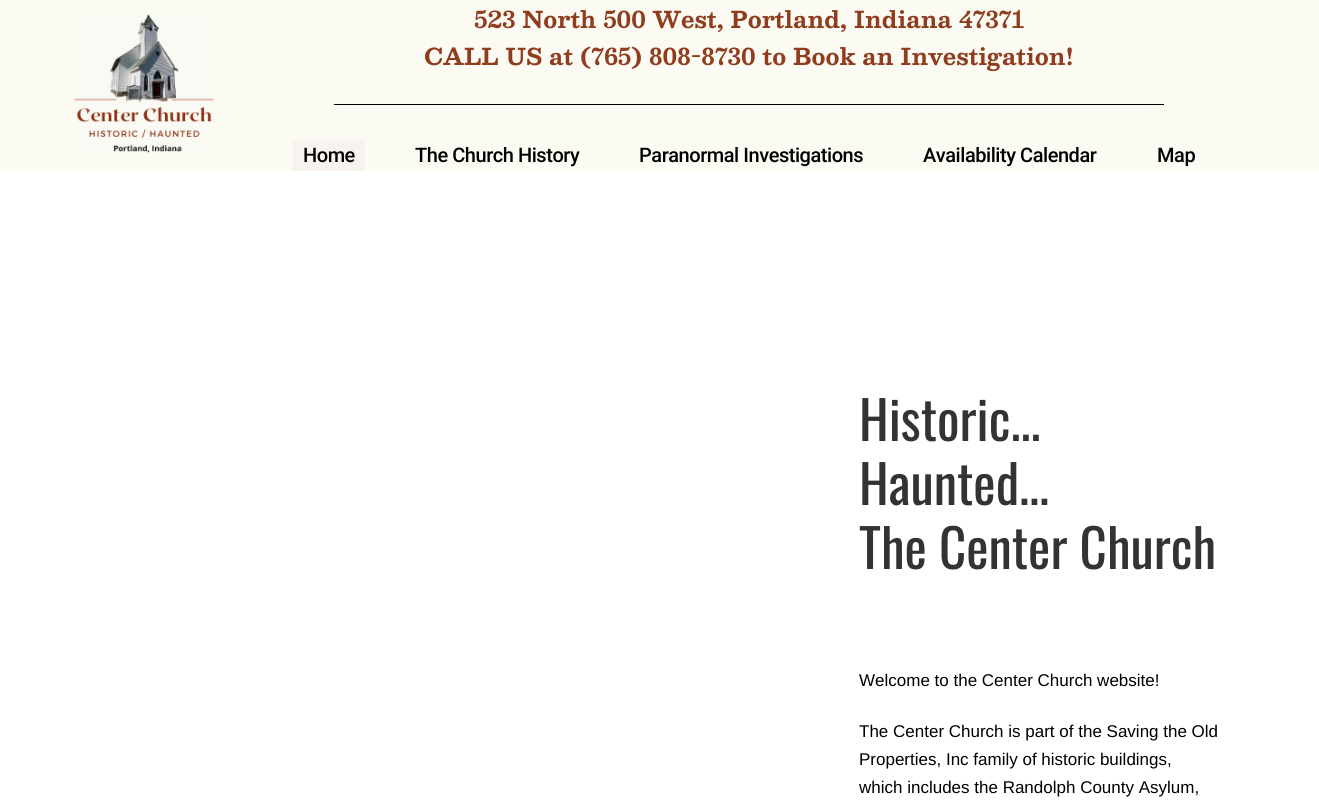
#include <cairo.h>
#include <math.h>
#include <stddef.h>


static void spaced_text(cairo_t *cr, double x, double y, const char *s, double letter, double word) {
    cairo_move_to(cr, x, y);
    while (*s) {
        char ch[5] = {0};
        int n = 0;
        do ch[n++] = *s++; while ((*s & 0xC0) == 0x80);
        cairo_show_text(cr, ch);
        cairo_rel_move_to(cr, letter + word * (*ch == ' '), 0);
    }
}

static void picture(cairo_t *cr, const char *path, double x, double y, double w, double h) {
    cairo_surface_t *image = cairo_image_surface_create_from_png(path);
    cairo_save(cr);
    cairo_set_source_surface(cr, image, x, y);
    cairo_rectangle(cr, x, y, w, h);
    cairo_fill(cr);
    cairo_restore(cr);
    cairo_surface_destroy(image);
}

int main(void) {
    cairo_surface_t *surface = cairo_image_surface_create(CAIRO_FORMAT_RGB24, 1319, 805);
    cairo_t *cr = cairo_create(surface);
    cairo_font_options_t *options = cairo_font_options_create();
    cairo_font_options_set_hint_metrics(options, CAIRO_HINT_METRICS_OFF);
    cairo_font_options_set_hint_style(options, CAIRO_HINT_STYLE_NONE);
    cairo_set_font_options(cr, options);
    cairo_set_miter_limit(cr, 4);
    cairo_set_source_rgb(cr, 1, 1, 1);
    cairo_paint(cr);
    cairo_set_source_rgb(cr, 0.984, 0.984, 0.953);
    cairo_rectangle(cr, 0, 0, 1319, 171);
    cairo_fill(cr);
    picture(cr, "img1.png", 74, 14, 140, 139);
    cairo_select_font_face(cr, "Besley", CAIRO_FONT_SLANT_NORMAL, CAIRO_FONT_WEIGHT_BOLD);
    cairo_set_font_size(cr, 23);
    cairo_set_source_rgb(cr, 0.565, 0.239, 0.122);
    cairo_move_to(cr, 474, 28);
    cairo_show_text(cr, "523 North 500 West, Portland, Indiana 47371");
    cairo_move_to(cr, 424, 65);
    cairo_show_text(cr, "CALL US at (765) 808-8730 to Book an Investigation!");
    cairo_set_source_rgb(cr, 0, 0, 0);
    cairo_rectangle(cr, 334, 104, 830, 1);
    cairo_fill(cr);
    cairo_set_source_rgb(cr, 0.973, 0.953, 0.937);
    cairo_rectangle(cr, 293, 139, 72, 32);
    cairo_fill(cr);
    cairo_select_font_face(cr, "Roboto Medium", CAIRO_FONT_SLANT_NORMAL, CAIRO_FONT_WEIGHT_NORMAL);
    cairo_set_font_size(cr, 20);
    cairo_set_source_rgb(cr, 0, 0, 0);
    spaced_text(cr, 303, 162, "Home", -0.45, 0);
    spaced_text(cr, 415, 162, "The Church History", -0.45, 0);
    spaced_text(cr, 639, 162, "Paranormal Investigations", -0.45, 0);
    spaced_text(cr, 923, 162, "Availability Calendar", -0.45, 0);
    spaced_text(cr, 1157, 162, "Map", -0.45, 0);
    cairo_select_font_face(cr, "Oswald", CAIRO_FONT_SLANT_NORMAL, CAIRO_FONT_WEIGHT_NORMAL);
    cairo_set_font_size(cr, 53);
    cairo_set_source_rgb(cr, 0.2, 0.2, 0.2);
    cairo_move_to(cr, 859, 441);
    cairo_show_text(cr, "Historic...");
    cairo_move_to(cr, 859, 505);
    cairo_show_text(cr, "Haunted...");
    cairo_move_to(cr, 859, 569);
    cairo_show_text(cr, "The Center Church");
    cairo_select_font_face(cr, "Liberation Sans", CAIRO_FONT_SLANT_NORMAL, CAIRO_FONT_WEIGHT_NORMAL);
    cairo_set_font_size(cr, 17);
    cairo_set_source_rgb(cr, 0, 0, 0);
    cairo_move_to(cr, 859, 686);
    cairo_show_text(cr, "Welcome to the Center Church website!");
    cairo_move_to(cr, 859, 737);
    cairo_show_text(cr, "The Center Church is part of the Saving the Old");
    cairo_move_to(cr, 859, 765);
    cairo_show_text(cr, "Properties, Inc family of historic buildings,");
    cairo_move_to(cr, 859, 793);
    cairo_show_text(cr, "which includes the Randolph County Asylum,");
    cairo_surface_write_to_png(surface, "page.png");
    cairo_font_options_destroy(options);
    cairo_destroy(cr);
    cairo_surface_destroy(surface);
    return 0;
}
